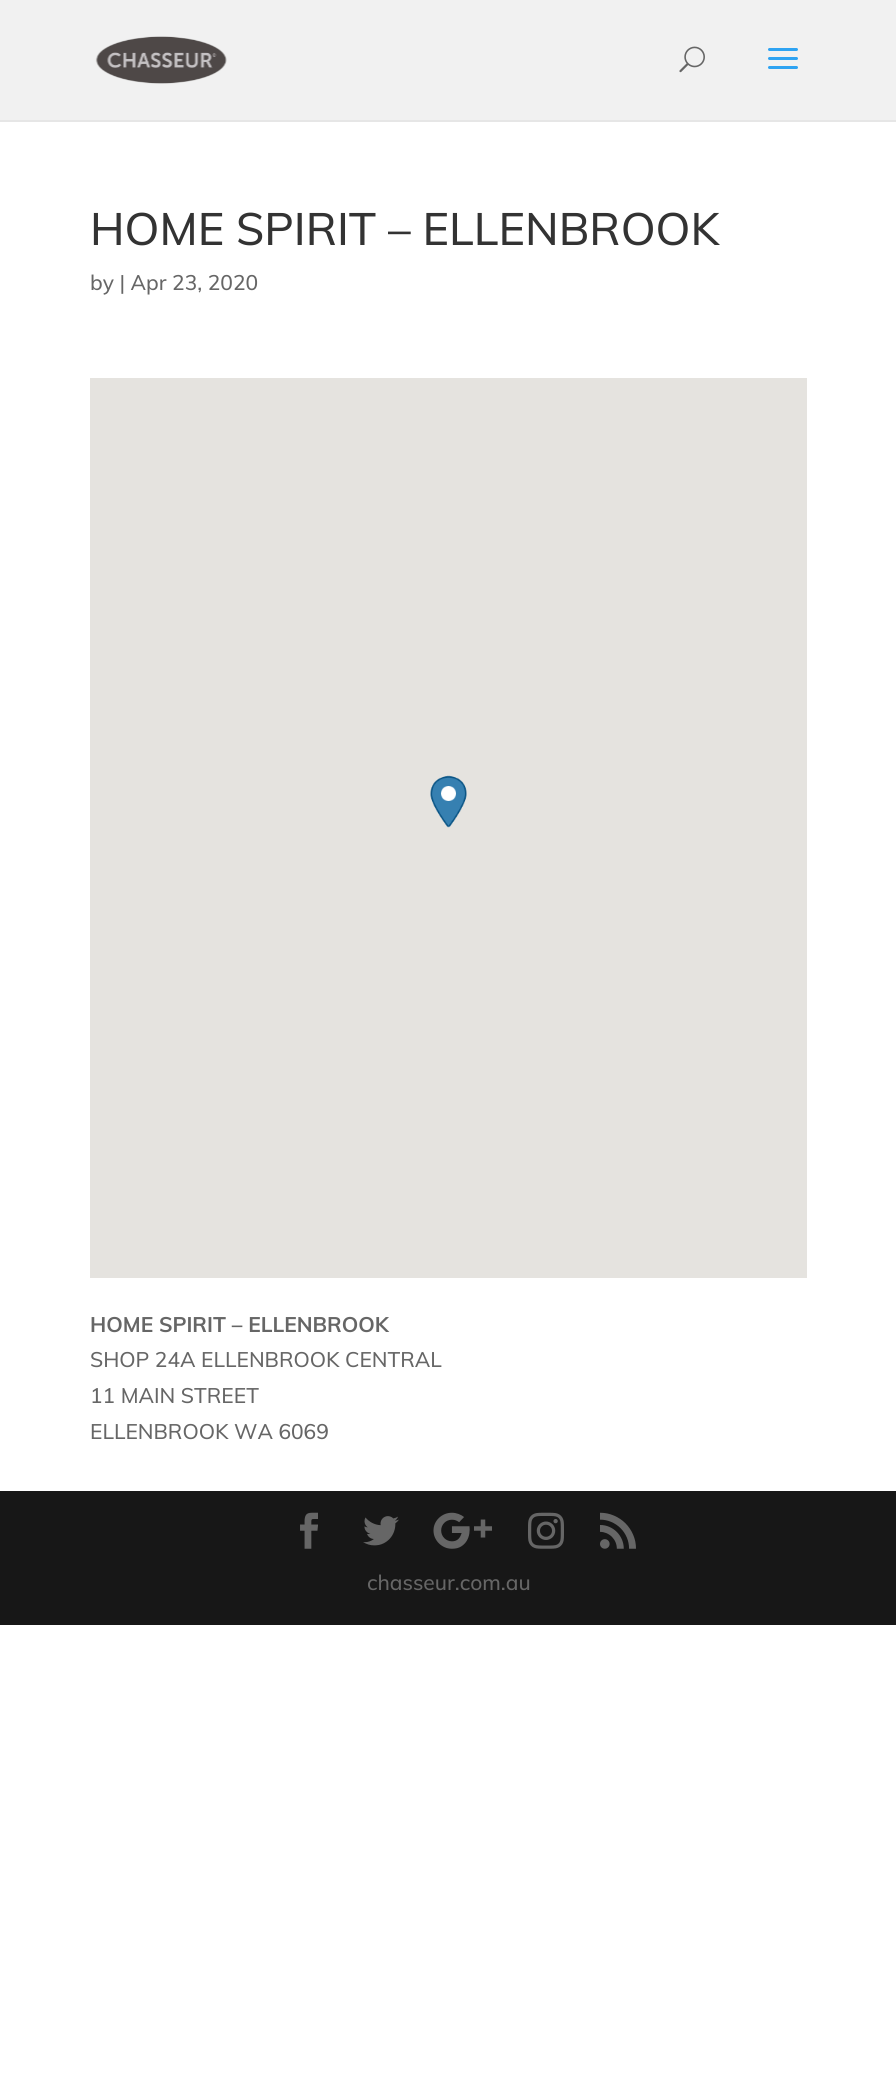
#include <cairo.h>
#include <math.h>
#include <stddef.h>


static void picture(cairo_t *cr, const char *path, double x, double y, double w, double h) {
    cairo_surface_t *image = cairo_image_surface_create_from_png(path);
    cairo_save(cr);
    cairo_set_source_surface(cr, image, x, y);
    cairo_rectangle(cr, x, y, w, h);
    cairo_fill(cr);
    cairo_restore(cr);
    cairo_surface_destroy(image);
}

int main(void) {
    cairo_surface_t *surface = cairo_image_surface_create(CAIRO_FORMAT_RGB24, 896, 2095);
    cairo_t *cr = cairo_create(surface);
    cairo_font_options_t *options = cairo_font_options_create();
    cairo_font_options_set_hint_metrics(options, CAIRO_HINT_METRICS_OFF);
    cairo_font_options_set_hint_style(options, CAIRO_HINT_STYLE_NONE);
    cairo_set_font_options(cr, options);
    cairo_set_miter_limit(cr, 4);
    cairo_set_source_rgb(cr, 1, 1, 1);
    cairo_paint(cr);
    cairo_set_source_rgb(cr, 0.902, 0.902, 0.902);
    cairo_rectangle(cr, 0, 120, 896, 2);
    cairo_fill(cr);
    cairo_set_source_rgb(cr, 0.945, 0.945, 0.945);
    cairo_rectangle(cr, 0, 0, 896, 120);
    cairo_fill(cr);
    picture(cr, "img1.png", 95, 36, 132, 48);
    picture(cr, "img2.png", 679, 46, 26, 27);
    picture(cr, "img3.png", 768, 48, 30, 21);
    cairo_select_font_face(cr, "Muli Medium", CAIRO_FONT_SLANT_NORMAL, CAIRO_FONT_WEIGHT_NORMAL);
    cairo_set_font_size(cr, 45);
    cairo_set_source_rgb(cr, 0.2, 0.2, 0.2);
    cairo_move_to(cr, 90, 245);
    cairo_show_text(cr, "HOME SPIRIT – ELLENBROOK");
    cairo_set_font_size(cr, 21);
    cairo_set_source_rgb(cr, 0.4, 0.4, 0.4);
    cairo_move_to(cr, 90, 290);
    cairo_show_text(cr, "by | Apr 23, 2020");
    cairo_set_source_rgb(cr, 0.898, 0.89, 0.875);
    cairo_rectangle(cr, 90, 378, 717, 900);
    cairo_fill(cr);
    picture(cr, "img4.png", 430, 775, 37, 53);
    cairo_select_font_face(cr, "Muli", CAIRO_FONT_SLANT_NORMAL, CAIRO_FONT_WEIGHT_BOLD);
    cairo_set_source_rgb(cr, 0.4, 0.4, 0.4);
    cairo_move_to(cr, 90, 1332);
    cairo_show_text(cr, "HOME SPIRIT – ELLENBROOK");
    cairo_select_font_face(cr, "Muli Medium", CAIRO_FONT_SLANT_NORMAL, CAIRO_FONT_WEIGHT_NORMAL);
    cairo_move_to(cr, 90, 1367);
    cairo_show_text(cr, "SHOP 24A ELLENBROOK CENTRAL");
    cairo_move_to(cr, 90, 1403);
    cairo_show_text(cr, "11 MAIN STREET");
    cairo_move_to(cr, 90, 1439);
    cairo_show_text(cr, "ELLENBROOK WA 6069");
    cairo_set_source_rgb(cr, 0.09, 0.09, 0.09);
    cairo_rectangle(cr, 0, 1491, 896, 134);
    cairo_fill(cr);
    picture(cr, "img5.png", 300, 1512, 18, 37);
    picture(cr, "img6.png", 363, 1516, 36, 30);
    picture(cr, "img7.png", 433, 1512, 59, 37);
    picture(cr, "img8.png", 528, 1512, 36, 37);
    picture(cr, "img9.png", 600, 1512, 36, 37);
    cairo_set_source_rgb(cr, 0.4, 0.4, 0.4);
    cairo_move_to(cr, 367, 1590);
    cairo_show_text(cr, "chasseur.com.au");
    cairo_surface_write_to_png(surface, "page.png");
    cairo_font_options_destroy(options);
    cairo_destroy(cr);
    cairo_surface_destroy(surface);
    return 0;
}
